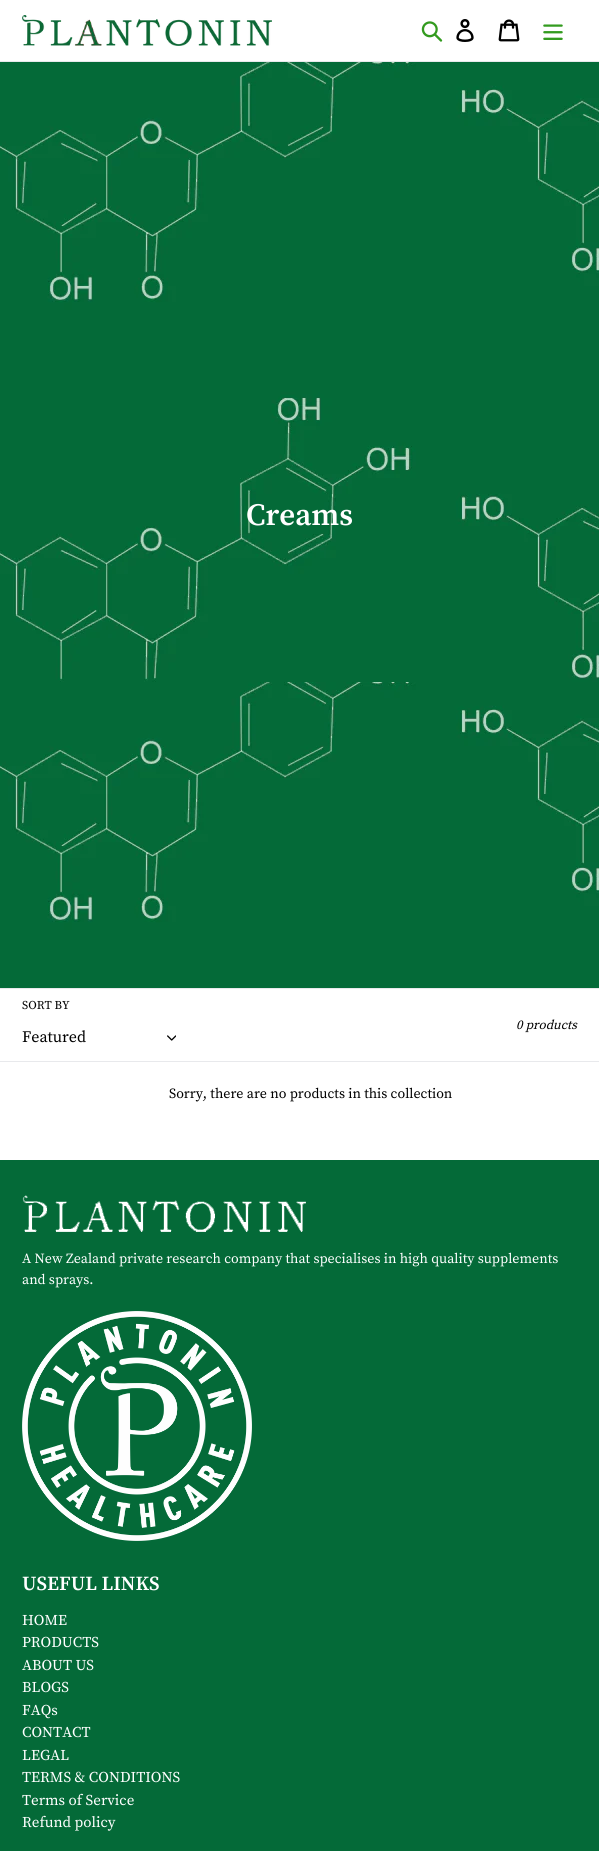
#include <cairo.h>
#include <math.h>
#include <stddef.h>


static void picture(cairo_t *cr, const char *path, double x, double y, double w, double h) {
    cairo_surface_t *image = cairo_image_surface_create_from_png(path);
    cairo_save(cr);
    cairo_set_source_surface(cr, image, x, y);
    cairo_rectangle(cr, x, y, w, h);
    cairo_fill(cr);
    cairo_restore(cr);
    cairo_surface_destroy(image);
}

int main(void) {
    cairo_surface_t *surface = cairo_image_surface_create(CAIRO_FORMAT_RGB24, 599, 1851);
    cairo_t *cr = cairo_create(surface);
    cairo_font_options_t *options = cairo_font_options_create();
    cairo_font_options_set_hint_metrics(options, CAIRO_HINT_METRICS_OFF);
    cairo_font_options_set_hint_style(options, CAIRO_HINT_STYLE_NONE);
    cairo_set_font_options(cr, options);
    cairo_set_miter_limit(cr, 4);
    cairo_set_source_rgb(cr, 1, 1, 1);
    cairo_paint(cr);
    cairo_set_source_rgb(cr, 0.91, 0.914, 0.922);
    cairo_rectangle(cr, 0, 61, 599, 1);
    cairo_fill(cr);
    picture(cr, "img1.png", 22, 15, 250, 31);
    picture(cr, "img2.png", 421, 21, 22, 21);
    picture(cr, "img3.png", 456, 19, 18, 23);
    picture(cr, "img4.png", 498, 19, 22, 23);
    picture(cr, "img5.png", 543, 24, 20, 16);
    picture(cr, "img6.png", 0, 62, 599, 926);
    cairo_select_font_face(cr, "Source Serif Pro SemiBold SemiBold", CAIRO_FONT_SLANT_NORMAL, CAIRO_FONT_WEIGHT_NORMAL);
    cairo_set_font_size(cr, 31);
    cairo_set_source_rgb(cr, 1, 1, 1);
    cairo_move_to(cr, 246, 525);
    cairo_show_text(cr, "Creams");
    cairo_set_source_rgb(cr, 0.91, 0.914, 0.922);
    cairo_rectangle(cr, 0, 988, 599, 1);
    cairo_fill(cr);
    cairo_rectangle(cr, 0, 1061, 599, 1);
    cairo_fill(cr);
    cairo_select_font_face(cr, "Source Serif Pro", CAIRO_FONT_SLANT_NORMAL, CAIRO_FONT_WEIGHT_NORMAL);
    cairo_set_font_size(cr, 12);
    cairo_set_source_rgb(cr, 0, 0, 0);
    cairo_move_to(cr, 22, 1009);
    cairo_show_text(cr, "SORT BY");
    cairo_set_font_size(cr, 16);
    cairo_move_to(cr, 22, 1042);
    cairo_show_text(cr, "Featured");
    picture(cr, "img7.png", 167, 1035, 9, 6);
    cairo_select_font_face(cr, "Source Serif Pro", CAIRO_FONT_SLANT_ITALIC, CAIRO_FONT_WEIGHT_NORMAL);
    cairo_set_font_size(cr, 13);
    cairo_move_to(cr, 516, 1029);
    cairo_show_text(cr, "0 products");
    cairo_select_font_face(cr, "Source Serif Pro", CAIRO_FONT_SLANT_NORMAL, CAIRO_FONT_WEIGHT_NORMAL);
    cairo_set_font_size(cr, 14);
    cairo_move_to(cr, 169, 1098);
    cairo_show_text(cr, "Sorry, there are no products in this collection");
    cairo_set_source_rgb(cr, 0.016, 0.416, 0.22);
    cairo_rectangle(cr, 0, 1160, 599, 691);
    cairo_fill(cr);
    picture(cr, "img8.png", 22, 1195, 284, 37);
    cairo_set_source_rgb(cr, 1, 1, 1);
    cairo_move_to(cr, 22, 1263);
    cairo_show_text(cr, "A New Zealand private research company that specialises in high quality supplements");
    cairo_move_to(cr, 22, 1284);
    cairo_show_text(cr, "and sprays.");
    picture(cr, "img9.png", 22, 1311, 230, 230);
    cairo_select_font_face(cr, "Source Serif Pro SemiBold SemiBold", CAIRO_FONT_SLANT_NORMAL, CAIRO_FONT_WEIGHT_NORMAL);
    cairo_set_font_size(cr, 20);
    cairo_move_to(cr, 22, 1590);
    cairo_show_text(cr, "USEFUL LINKS");
    cairo_select_font_face(cr, "Source Serif Pro", CAIRO_FONT_SLANT_NORMAL, CAIRO_FONT_WEIGHT_NORMAL);
    cairo_set_font_size(cr, 15);
    cairo_move_to(cr, 22, 1625);
    cairo_show_text(cr, "HOME");
    cairo_move_to(cr, 22, 1647);
    cairo_show_text(cr, "PRODUCTS");
    cairo_move_to(cr, 22, 1670);
    cairo_show_text(cr, "ABOUT US");
    cairo_move_to(cr, 22, 1692);
    cairo_show_text(cr, "BLOGS");
    cairo_move_to(cr, 22, 1715);
    cairo_show_text(cr, "FAQs");
    cairo_move_to(cr, 22, 1737);
    cairo_show_text(cr, "CONTACT");
    cairo_move_to(cr, 22, 1760);
    cairo_show_text(cr, "LEGAL");
    cairo_move_to(cr, 22, 1782);
    cairo_show_text(cr, "TERMS & CONDITIONS");
    cairo_move_to(cr, 22, 1805);
    cairo_show_text(cr, "Terms of Service");
    cairo_move_to(cr, 22, 1827);
    cairo_show_text(cr, "Refund policy");
    cairo_surface_write_to_png(surface, "page.png");
    cairo_font_options_destroy(options);
    cairo_destroy(cr);
    cairo_surface_destroy(surface);
    return 0;
}
